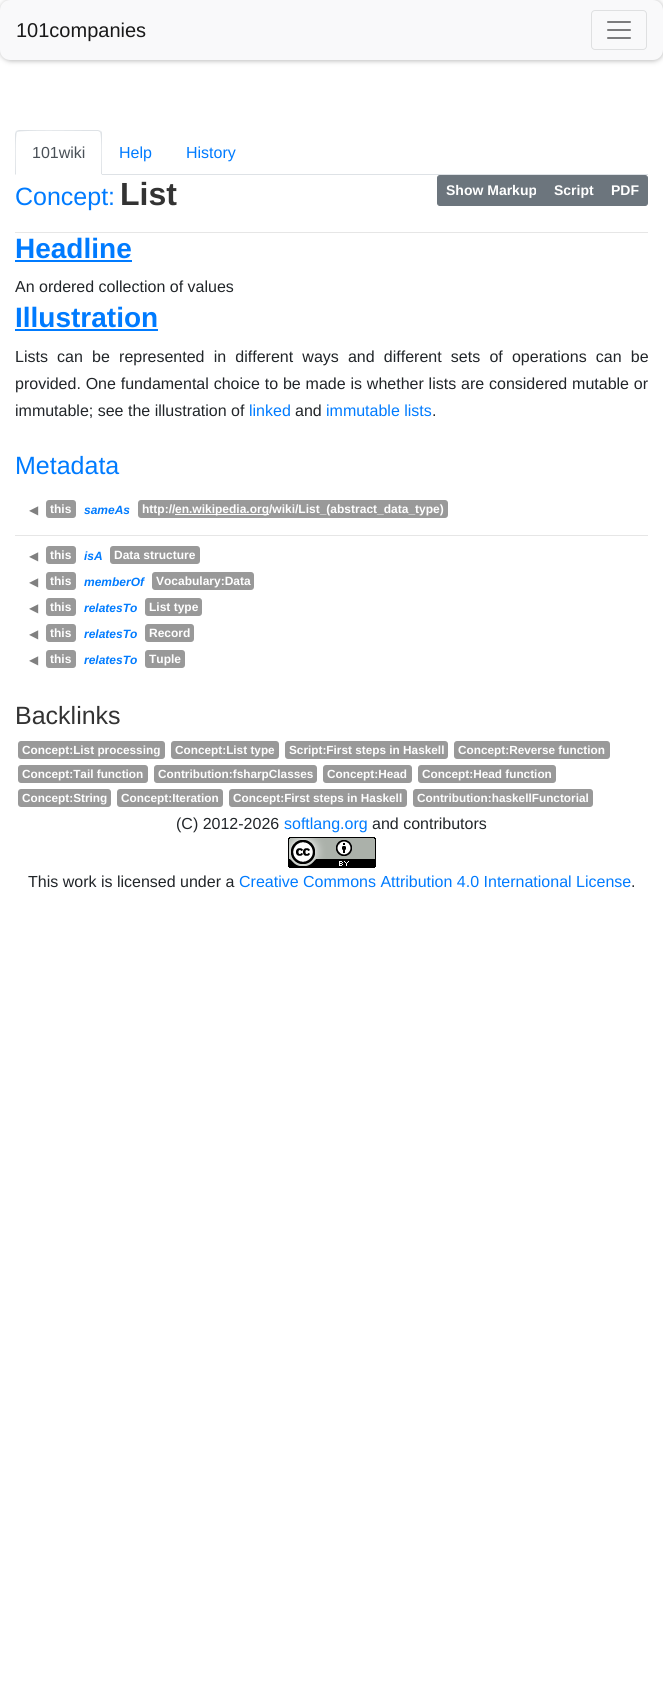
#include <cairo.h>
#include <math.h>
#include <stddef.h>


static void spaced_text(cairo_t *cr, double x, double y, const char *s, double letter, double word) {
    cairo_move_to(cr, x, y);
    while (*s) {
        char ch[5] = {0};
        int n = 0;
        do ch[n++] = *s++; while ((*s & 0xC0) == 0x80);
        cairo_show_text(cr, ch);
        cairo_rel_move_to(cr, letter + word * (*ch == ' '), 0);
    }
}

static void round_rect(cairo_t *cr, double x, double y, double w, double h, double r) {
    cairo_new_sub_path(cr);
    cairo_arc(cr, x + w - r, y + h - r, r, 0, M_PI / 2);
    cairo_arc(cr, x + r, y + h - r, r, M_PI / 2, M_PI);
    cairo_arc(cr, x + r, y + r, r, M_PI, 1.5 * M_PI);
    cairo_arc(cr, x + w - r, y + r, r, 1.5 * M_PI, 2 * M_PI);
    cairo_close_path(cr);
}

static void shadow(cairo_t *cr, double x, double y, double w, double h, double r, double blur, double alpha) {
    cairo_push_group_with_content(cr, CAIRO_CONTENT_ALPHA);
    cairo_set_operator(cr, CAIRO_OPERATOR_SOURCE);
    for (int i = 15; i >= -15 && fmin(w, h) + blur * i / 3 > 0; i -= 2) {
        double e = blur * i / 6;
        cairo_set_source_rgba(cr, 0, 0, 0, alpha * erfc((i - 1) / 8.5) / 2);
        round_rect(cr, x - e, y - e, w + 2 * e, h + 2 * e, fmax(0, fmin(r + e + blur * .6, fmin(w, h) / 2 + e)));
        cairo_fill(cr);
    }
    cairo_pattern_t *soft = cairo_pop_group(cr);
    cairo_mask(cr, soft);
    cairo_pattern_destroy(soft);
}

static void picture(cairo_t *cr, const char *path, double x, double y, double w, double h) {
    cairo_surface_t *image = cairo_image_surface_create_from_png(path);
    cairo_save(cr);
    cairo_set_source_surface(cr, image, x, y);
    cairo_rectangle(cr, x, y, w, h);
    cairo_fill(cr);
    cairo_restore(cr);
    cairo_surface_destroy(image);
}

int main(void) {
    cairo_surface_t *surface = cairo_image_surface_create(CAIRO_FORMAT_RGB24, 663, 1683);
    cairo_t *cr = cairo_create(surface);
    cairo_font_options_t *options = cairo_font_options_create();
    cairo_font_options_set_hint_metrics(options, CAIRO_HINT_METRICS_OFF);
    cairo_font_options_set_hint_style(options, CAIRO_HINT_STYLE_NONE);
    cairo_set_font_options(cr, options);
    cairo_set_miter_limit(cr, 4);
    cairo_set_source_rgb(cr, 1, 1, 1);
    cairo_paint(cr);
    cairo_set_source_rgb(cr, 0.733, 0.733, 0.733);
    shadow(cr, 0, 0, 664, 61, 11, 2.5, 1);
    cairo_set_source_rgb(cr, 0.973, 0.976, 0.98);
    round_rect(cr, 0, 0, 663, 60, 10);
    cairo_fill(cr);
    cairo_select_font_face(cr, "Liberation Sans", CAIRO_FONT_SLANT_NORMAL, CAIRO_FONT_WEIGHT_NORMAL);
    cairo_set_font_size(cr, 20);
    cairo_set_source_rgb(cr, 0.098, 0.098, 0.098);
    cairo_move_to(cr, 16, 37);
    cairo_show_text(cr, "101companies");
    round_rect(cr, 591.5, 10.5, 55, 39, 3.5);
    cairo_set_source_rgb(cr, 0.875, 0.878, 0.882);
    cairo_set_line_width(cr, 1);
    cairo_stroke(cr);
    picture(cr, "img1.png", 607, 21, 24, 18);
    cairo_set_source_rgb(cr, 0.871, 0.886, 0.902);
    cairo_rectangle(cr, 102, 174, 546, 1);
    cairo_fill(cr);
    cairo_new_path(cr);
    cairo_move_to(cr, 19, 130);
    cairo_line_to(cr, 16, 131);
    cairo_line_to(cr, 17, 132);
    cairo_curve_to(cr, 19, 130, 78, 131, 85, 131);
    cairo_line_to(cr, 98, 131);
    cairo_line_to(cr, 100, 132);
    cairo_line_to(cr, 101, 131);
    cairo_line_to(cr, 98, 130);
    cairo_close_path(cr);
    cairo_fill(cr);
    cairo_new_path(cr);
    cairo_move_to(cr, 102, 175);
    cairo_line_to(cr, 102, 134);
    cairo_curve_to(cr, 102, 133, 102, 132, 101, 131);
    cairo_line_to(cr, 100, 132);
    cairo_curve_to(cr, 102, 134, 101, 169, 101, 174);
    cairo_close_path(cr);
    cairo_fill(cr);
    cairo_set_source_rgb(cr, 1, 1, 1);
    cairo_new_path(cr);
    cairo_move_to(cr, 102, 175);
    cairo_line_to(cr, 101, 174);
    cairo_line_to(cr, 16, 174);
    cairo_line_to(cr, 15, 175);
    cairo_close_path(cr);
    cairo_fill(cr);
    cairo_set_source_rgb(cr, 0.871, 0.886, 0.902);
    cairo_new_path(cr);
    cairo_move_to(cr, 15, 175);
    cairo_line_to(cr, 16, 174);
    cairo_curve_to(cr, 16, 169, 15, 134, 17, 132);
    cairo_line_to(cr, 16, 131);
    cairo_line_to(cr, 15, 134);
    cairo_close_path(cr);
    cairo_fill(cr);
    cairo_set_font_size(cr, 16);
    cairo_set_source_rgb(cr, 0.286, 0.314, 0.341);
    cairo_move_to(cr, 32, 158);
    cairo_show_text(cr, "101wiki");
    cairo_set_source_rgb(cr, 0, 0.482, 1);
    cairo_move_to(cr, 119, 158);
    cairo_show_text(cr, "Help");
    cairo_move_to(cr, 186, 158);
    cairo_show_text(cr, "History");
    cairo_set_font_size(cr, 25);
    cairo_move_to(cr, 15, 205);
    cairo_show_text(cr, "Concept:");
    cairo_select_font_face(cr, "Liberation Sans", CAIRO_FONT_SLANT_NORMAL, CAIRO_FONT_WEIGHT_BOLD);
    cairo_set_font_size(cr, 32);
    cairo_set_source_rgb(cr, 0.2, 0.2, 0.2);
    cairo_move_to(cr, 120, 205);
    cairo_show_text(cr, "List");
    cairo_set_source_rgb(cr, 0.424, 0.459, 0.49);
    cairo_new_path(cr);
    cairo_move_to(cr, 440, 175.5);
    cairo_line_to(cr, 545.5, 175.5);
    cairo_line_to(cr, 545.5, 205.5);
    cairo_line_to(cr, 440, 205.5);
    cairo_curve_to(cr, 438.5, 205.5, 437.5, 204.5, 437.5, 203);
    cairo_line_to(cr, 437.5, 178);
    cairo_curve_to(cr, 437.5, 176.5, 438.5, 175.5, 440, 175.5);
    cairo_close_path(cr);
    cairo_fill_preserve(cr);
    cairo_stroke(cr);
    cairo_set_font_size(cr, 14);
    cairo_set_source_rgb(cr, 1, 1, 1);
    cairo_move_to(cr, 446, 195);
    cairo_show_text(cr, "Show Markup");
    cairo_set_source_rgb(cr, 0.424, 0.459, 0.49);
    cairo_rectangle(cr, 546, 175, 56, 31);
    cairo_fill(cr);
    cairo_set_source_rgb(cr, 1, 1, 1);
    cairo_move_to(cr, 554, 195);
    cairo_show_text(cr, "Script");
    cairo_set_source_rgb(cr, 0.424, 0.459, 0.49);
    cairo_new_path(cr);
    cairo_move_to(cr, 602.5, 175.5);
    cairo_line_to(cr, 645, 175.5);
    cairo_curve_to(cr, 646.5, 175.5, 647.5, 176.5, 647.5, 178);
    cairo_line_to(cr, 647.5, 203);
    cairo_curve_to(cr, 647.5, 204.5, 646.5, 205.5, 645, 205.5);
    cairo_line_to(cr, 602.5, 205.5);
    cairo_close_path(cr);
    cairo_fill_preserve(cr);
    cairo_stroke(cr);
    cairo_set_source_rgb(cr, 1, 1, 1);
    cairo_move_to(cr, 611, 195);
    cairo_show_text(cr, "PDF");
    cairo_set_source_rgb(cr, 0.902, 0.902, 0.902);
    cairo_rectangle(cr, 15, 232, 633, 1);
    cairo_fill(cr);
    cairo_set_font_size(cr, 28);
    cairo_set_source_rgb(cr, 0, 0.482, 1);
    cairo_move_to(cr, 15, 258);
    cairo_show_text(cr, "Headline");
    cairo_rectangle(cr, 15, 260, 117, 2);
    cairo_fill(cr);
    cairo_select_font_face(cr, "Liberation Sans", CAIRO_FONT_SLANT_NORMAL, CAIRO_FONT_WEIGHT_NORMAL);
    cairo_set_font_size(cr, 16);
    cairo_set_source_rgb(cr, 0.129, 0.145, 0.161);
    cairo_move_to(cr, 15, 292);
    cairo_show_text(cr, "An ordered collection of values");
    cairo_select_font_face(cr, "Liberation Sans", CAIRO_FONT_SLANT_NORMAL, CAIRO_FONT_WEIGHT_BOLD);
    cairo_set_font_size(cr, 28);
    cairo_set_source_rgb(cr, 0, 0.482, 1);
    cairo_move_to(cr, 15, 327);
    cairo_show_text(cr, "Illustration");
    cairo_rectangle(cr, 15, 329, 143, 2);
    cairo_fill(cr);
    cairo_select_font_face(cr, "Liberation Sans", CAIRO_FONT_SLANT_NORMAL, CAIRO_FONT_WEIGHT_NORMAL);
    cairo_set_font_size(cr, 16);
    cairo_set_source_rgb(cr, 0.129, 0.145, 0.161);
    spaced_text(cr, 15, 362, "Lists can be represented in different ways and different sets of operations can be", 0, 4.75);
    spaced_text(cr, 15, 389, "provided. One fundamental choice to be made is whether lists are considered mutable or", 0, 0.4);
    cairo_move_to(cr, 15, 416);
    cairo_show_text(cr, "immutable; see the illustration of");
    cairo_set_source_rgb(cr, 0, 0.482, 1);
    cairo_move_to(cr, 249, 416);
    cairo_show_text(cr, "linked");
    cairo_set_source_rgb(cr, 0.129, 0.145, 0.161);
    cairo_move_to(cr, 295, 416);
    cairo_show_text(cr, "and");
    cairo_set_source_rgb(cr, 0, 0.482, 1);
    cairo_move_to(cr, 326, 416);
    cairo_show_text(cr, "immutable lists");
    cairo_set_source_rgb(cr, 0.129, 0.145, 0.161);
    cairo_move_to(cr, 432, 416);
    cairo_show_text(cr, ".");
    cairo_set_font_size(cr, 25);
    cairo_set_source_rgb(cr, 0, 0.482, 1);
    cairo_move_to(cr, 15, 474);
    cairo_show_text(cr, "Metadata");
    cairo_select_font_face(cr, "DejaVu Sans", CAIRO_FONT_SLANT_NORMAL, CAIRO_FONT_WEIGHT_NORMAL);
    cairo_set_font_size(cr, 12);
    cairo_set_source_rgb(cr, 0.502, 0.502, 0.502);
    cairo_move_to(cr, 29, 514);
    cairo_show_text(cr, "◀");
    cairo_set_source_rgb(cr, 0.6, 0.6, 0.6);
    round_rect(cr, 46, 500, 30, 18, 3);
    cairo_fill(cr);
    cairo_select_font_face(cr, "Liberation Sans", CAIRO_FONT_SLANT_NORMAL, CAIRO_FONT_WEIGHT_BOLD);
    cairo_set_source_rgb(cr, 1, 1, 1);
    cairo_move_to(cr, 50, 513);
    cairo_show_text(cr, "this");
    cairo_select_font_face(cr, "Liberation Sans", CAIRO_FONT_SLANT_ITALIC, CAIRO_FONT_WEIGHT_BOLD);
    cairo_set_source_rgb(cr, 0, 0.482, 1);
    cairo_move_to(cr, 84, 514);
    cairo_show_text(cr, "sameAs");
    cairo_set_source_rgb(cr, 0.6, 0.6, 0.6);
    round_rect(cr, 138, 500, 310, 18, 3);
    cairo_fill(cr);
    cairo_select_font_face(cr, "Liberation Sans", CAIRO_FONT_SLANT_NORMAL, CAIRO_FONT_WEIGHT_BOLD);
    cairo_set_source_rgb(cr, 1, 1, 1);
    cairo_move_to(cr, 142, 513);
    cairo_show_text(cr, "http://");
    cairo_rectangle(cr, 175, 514, 94, 1);
    cairo_fill(cr);
    cairo_move_to(cr, 175, 513);
    cairo_show_text(cr, "en.wikipedia.org/wiki/List_(abstract_data_type)");
    cairo_set_source_rgb(cr, 0.902, 0.902, 0.902);
    cairo_rectangle(cr, 15, 535, 633, 1);
    cairo_fill(cr);
    cairo_select_font_face(cr, "DejaVu Sans", CAIRO_FONT_SLANT_NORMAL, CAIRO_FONT_WEIGHT_NORMAL);
    cairo_set_source_rgb(cr, 0.502, 0.502, 0.502);
    cairo_move_to(cr, 29, 560);
    cairo_show_text(cr, "◀");
    cairo_set_source_rgb(cr, 0.6, 0.6, 0.6);
    round_rect(cr, 46, 546, 30, 18, 3);
    cairo_fill(cr);
    cairo_select_font_face(cr, "Liberation Sans", CAIRO_FONT_SLANT_NORMAL, CAIRO_FONT_WEIGHT_BOLD);
    cairo_set_source_rgb(cr, 1, 1, 1);
    cairo_move_to(cr, 50, 559);
    cairo_show_text(cr, "this");
    cairo_select_font_face(cr, "Liberation Sans", CAIRO_FONT_SLANT_ITALIC, CAIRO_FONT_WEIGHT_BOLD);
    cairo_set_source_rgb(cr, 0, 0.482, 1);
    cairo_move_to(cr, 84, 560);
    cairo_show_text(cr, "isA");
    cairo_set_source_rgb(cr, 0.6, 0.6, 0.6);
    round_rect(cr, 110, 546, 90, 18, 3);
    cairo_fill(cr);
    cairo_select_font_face(cr, "Liberation Sans", CAIRO_FONT_SLANT_NORMAL, CAIRO_FONT_WEIGHT_BOLD);
    cairo_set_source_rgb(cr, 1, 1, 1);
    cairo_move_to(cr, 114, 559);
    cairo_show_text(cr, "Data structure");
    cairo_select_font_face(cr, "DejaVu Sans", CAIRO_FONT_SLANT_NORMAL, CAIRO_FONT_WEIGHT_NORMAL);
    cairo_set_source_rgb(cr, 0.502, 0.502, 0.502);
    cairo_move_to(cr, 29, 586);
    cairo_show_text(cr, "◀");
    cairo_set_source_rgb(cr, 0.6, 0.6, 0.6);
    round_rect(cr, 46, 572, 30, 18, 3);
    cairo_fill(cr);
    cairo_select_font_face(cr, "Liberation Sans", CAIRO_FONT_SLANT_NORMAL, CAIRO_FONT_WEIGHT_BOLD);
    cairo_set_source_rgb(cr, 1, 1, 1);
    cairo_move_to(cr, 50, 585);
    cairo_show_text(cr, "this");
    cairo_select_font_face(cr, "Liberation Sans", CAIRO_FONT_SLANT_ITALIC, CAIRO_FONT_WEIGHT_BOLD);
    cairo_set_source_rgb(cr, 0, 0.482, 1);
    cairo_move_to(cr, 84, 586);
    cairo_show_text(cr, "memberOf");
    cairo_set_source_rgb(cr, 0.6, 0.6, 0.6);
    round_rect(cr, 152, 572, 102, 18, 3);
    cairo_fill(cr);
    cairo_select_font_face(cr, "Liberation Sans", CAIRO_FONT_SLANT_NORMAL, CAIRO_FONT_WEIGHT_BOLD);
    cairo_set_source_rgb(cr, 1, 1, 1);
    cairo_move_to(cr, 156, 585);
    cairo_show_text(cr, "Vocabulary:Data");
    cairo_select_font_face(cr, "DejaVu Sans", CAIRO_FONT_SLANT_NORMAL, CAIRO_FONT_WEIGHT_NORMAL);
    cairo_set_source_rgb(cr, 0.502, 0.502, 0.502);
    cairo_move_to(cr, 29, 612);
    cairo_show_text(cr, "◀");
    cairo_set_source_rgb(cr, 0.6, 0.6, 0.6);
    round_rect(cr, 46, 598, 30, 18, 3);
    cairo_fill(cr);
    cairo_select_font_face(cr, "Liberation Sans", CAIRO_FONT_SLANT_NORMAL, CAIRO_FONT_WEIGHT_BOLD);
    cairo_set_source_rgb(cr, 1, 1, 1);
    cairo_move_to(cr, 50, 611);
    cairo_show_text(cr, "this");
    cairo_select_font_face(cr, "Liberation Sans", CAIRO_FONT_SLANT_ITALIC, CAIRO_FONT_WEIGHT_BOLD);
    cairo_set_source_rgb(cr, 0, 0.482, 1);
    cairo_move_to(cr, 84, 612);
    cairo_show_text(cr, "relatesTo");
    cairo_set_source_rgb(cr, 0.6, 0.6, 0.6);
    round_rect(cr, 145, 598, 57, 18, 3);
    cairo_fill(cr);
    cairo_select_font_face(cr, "Liberation Sans", CAIRO_FONT_SLANT_NORMAL, CAIRO_FONT_WEIGHT_BOLD);
    cairo_set_source_rgb(cr, 1, 1, 1);
    cairo_move_to(cr, 149, 611);
    cairo_show_text(cr, "List type");
    cairo_select_font_face(cr, "DejaVu Sans", CAIRO_FONT_SLANT_NORMAL, CAIRO_FONT_WEIGHT_NORMAL);
    cairo_set_source_rgb(cr, 0.502, 0.502, 0.502);
    cairo_move_to(cr, 29, 638);
    cairo_show_text(cr, "◀");
    cairo_set_source_rgb(cr, 0.6, 0.6, 0.6);
    round_rect(cr, 46, 624, 30, 18, 3);
    cairo_fill(cr);
    cairo_select_font_face(cr, "Liberation Sans", CAIRO_FONT_SLANT_NORMAL, CAIRO_FONT_WEIGHT_BOLD);
    cairo_set_source_rgb(cr, 1, 1, 1);
    cairo_move_to(cr, 50, 637);
    cairo_show_text(cr, "this");
    cairo_select_font_face(cr, "Liberation Sans", CAIRO_FONT_SLANT_ITALIC, CAIRO_FONT_WEIGHT_BOLD);
    cairo_set_source_rgb(cr, 0, 0.482, 1);
    cairo_move_to(cr, 84, 638);
    cairo_show_text(cr, "relatesTo");
    cairo_set_source_rgb(cr, 0.6, 0.6, 0.6);
    round_rect(cr, 145, 624, 49, 18, 3);
    cairo_fill(cr);
    cairo_select_font_face(cr, "Liberation Sans", CAIRO_FONT_SLANT_NORMAL, CAIRO_FONT_WEIGHT_BOLD);
    cairo_set_source_rgb(cr, 1, 1, 1);
    cairo_move_to(cr, 149, 637);
    cairo_show_text(cr, "Record");
    cairo_select_font_face(cr, "DejaVu Sans", CAIRO_FONT_SLANT_NORMAL, CAIRO_FONT_WEIGHT_NORMAL);
    cairo_set_source_rgb(cr, 0.502, 0.502, 0.502);
    cairo_move_to(cr, 29, 664);
    cairo_show_text(cr, "◀");
    cairo_set_source_rgb(cr, 0.6, 0.6, 0.6);
    round_rect(cr, 46, 650, 30, 18, 3);
    cairo_fill(cr);
    cairo_select_font_face(cr, "Liberation Sans", CAIRO_FONT_SLANT_NORMAL, CAIRO_FONT_WEIGHT_BOLD);
    cairo_set_source_rgb(cr, 1, 1, 1);
    cairo_move_to(cr, 50, 663);
    cairo_show_text(cr, "this");
    cairo_select_font_face(cr, "Liberation Sans", CAIRO_FONT_SLANT_ITALIC, CAIRO_FONT_WEIGHT_BOLD);
    cairo_set_source_rgb(cr, 0, 0.482, 1);
    cairo_move_to(cr, 84, 664);
    cairo_show_text(cr, "relatesTo");
    cairo_set_source_rgb(cr, 0.6, 0.6, 0.6);
    round_rect(cr, 145, 650, 40, 18, 3);
    cairo_fill(cr);
    cairo_select_font_face(cr, "Liberation Sans", CAIRO_FONT_SLANT_NORMAL, CAIRO_FONT_WEIGHT_BOLD);
    cairo_set_source_rgb(cr, 1, 1, 1);
    cairo_move_to(cr, 149, 663);
    cairo_show_text(cr, "Tuple");
    cairo_select_font_face(cr, "Liberation Sans", CAIRO_FONT_SLANT_NORMAL, CAIRO_FONT_WEIGHT_NORMAL);
    cairo_set_font_size(cr, 25);
    cairo_set_source_rgb(cr, 0.2, 0.2, 0.2);
    cairo_move_to(cr, 15, 724);
    cairo_show_text(cr, "Backlinks");
    cairo_set_source_rgb(cr, 0.6, 0.6, 0.6);
    round_rect(cr, 18, 741, 147, 18, 3);
    cairo_fill(cr);
    cairo_select_font_face(cr, "Liberation Sans", CAIRO_FONT_SLANT_NORMAL, CAIRO_FONT_WEIGHT_BOLD);
    cairo_set_font_size(cr, 11.8);
    cairo_set_source_rgb(cr, 1, 1, 1);
    cairo_move_to(cr, 22, 754);
    cairo_show_text(cr, "Concept:List processing");
    cairo_set_source_rgb(cr, 0.6, 0.6, 0.6);
    round_rect(cr, 171, 741, 108, 18, 3);
    cairo_fill(cr);
    cairo_set_source_rgb(cr, 1, 1, 1);
    cairo_move_to(cr, 175, 754);
    cairo_show_text(cr, "Concept:List type");
    cairo_set_source_rgb(cr, 0.6, 0.6, 0.6);
    round_rect(cr, 285, 741, 163, 18, 3);
    cairo_fill(cr);
    cairo_set_source_rgb(cr, 1, 1, 1);
    cairo_move_to(cr, 289, 754);
    cairo_show_text(cr, "Script:First steps in Haskell");
    cairo_set_source_rgb(cr, 0.6, 0.6, 0.6);
    round_rect(cr, 454, 741, 156, 18, 3);
    cairo_fill(cr);
    cairo_set_source_rgb(cr, 1, 1, 1);
    cairo_move_to(cr, 458, 754);
    cairo_show_text(cr, "Concept:Reverse function");
    cairo_set_source_rgb(cr, 0.6, 0.6, 0.6);
    round_rect(cr, 18, 765, 130, 18, 3);
    cairo_fill(cr);
    cairo_set_source_rgb(cr, 1, 1, 1);
    cairo_move_to(cr, 22, 778);
    cairo_show_text(cr, "Concept:Tail function");
    cairo_set_source_rgb(cr, 0.6, 0.6, 0.6);
    round_rect(cr, 154, 765, 163, 18, 3);
    cairo_fill(cr);
    cairo_set_source_rgb(cr, 1, 1, 1);
    cairo_move_to(cr, 158, 778);
    cairo_show_text(cr, "Contribution:fsharpClasses");
    cairo_set_source_rgb(cr, 0.6, 0.6, 0.6);
    round_rect(cr, 323, 765, 89, 18, 3);
    cairo_fill(cr);
    cairo_set_source_rgb(cr, 1, 1, 1);
    cairo_move_to(cr, 327, 778);
    cairo_show_text(cr, "Concept:Head");
    cairo_set_source_rgb(cr, 0.6, 0.6, 0.6);
    round_rect(cr, 418, 765, 138, 18, 3);
    cairo_fill(cr);
    cairo_set_source_rgb(cr, 1, 1, 1);
    cairo_move_to(cr, 422, 778);
    cairo_show_text(cr, "Concept:Head function");
    cairo_set_source_rgb(cr, 0.6, 0.6, 0.6);
    round_rect(cr, 18, 789, 93, 18, 3);
    cairo_fill(cr);
    cairo_set_source_rgb(cr, 1, 1, 1);
    cairo_move_to(cr, 22, 802);
    cairo_show_text(cr, "Concept:String");
    cairo_set_source_rgb(cr, 0.6, 0.6, 0.6);
    round_rect(cr, 117, 789, 106, 18, 3);
    cairo_fill(cr);
    cairo_set_source_rgb(cr, 1, 1, 1);
    cairo_move_to(cr, 121, 802);
    cairo_show_text(cr, "Concept:Iteration");
    cairo_set_source_rgb(cr, 0.6, 0.6, 0.6);
    round_rect(cr, 229, 789, 178, 18, 3);
    cairo_fill(cr);
    cairo_set_source_rgb(cr, 1, 1, 1);
    cairo_move_to(cr, 233, 802);
    cairo_show_text(cr, "Concept:First steps in Haskell");
    cairo_set_source_rgb(cr, 0.6, 0.6, 0.6);
    round_rect(cr, 413, 789, 180, 18, 3);
    cairo_fill(cr);
    cairo_set_source_rgb(cr, 1, 1, 1);
    cairo_move_to(cr, 417, 802);
    cairo_show_text(cr, "Contribution:haskellFunctorial");
    cairo_select_font_face(cr, "Liberation Sans", CAIRO_FONT_SLANT_NORMAL, CAIRO_FONT_WEIGHT_NORMAL);
    cairo_set_font_size(cr, 16);
    cairo_set_source_rgb(cr, 0.129, 0.145, 0.161);
    cairo_move_to(cr, 176, 829);
    cairo_show_text(cr, "(C) 2012-2026");
    cairo_set_source_rgb(cr, 0, 0.482, 1);
    cairo_move_to(cr, 284, 829);
    cairo_show_text(cr, "softlang.org");
    cairo_set_source_rgb(cr, 0.129, 0.145, 0.161);
    cairo_move_to(cr, 372, 829);
    cairo_show_text(cr, "and contributors");
    picture(cr, "img2.png", 288, 837, 88, 31);
    cairo_move_to(cr, 28, 887);
    cairo_show_text(cr, "This work is licensed under a");
    cairo_set_source_rgb(cr, 0, 0.482, 1);
    cairo_move_to(cr, 239, 887);
    cairo_show_text(cr, "Creative Commons Attribution 4.0 International License");
    cairo_set_source_rgb(cr, 0.129, 0.145, 0.161);
    cairo_move_to(cr, 631, 887);
    cairo_show_text(cr, ".");
    cairo_surface_write_to_png(surface, "page.png");
    cairo_font_options_destroy(options);
    cairo_destroy(cr);
    cairo_surface_destroy(surface);
    return 0;
}
